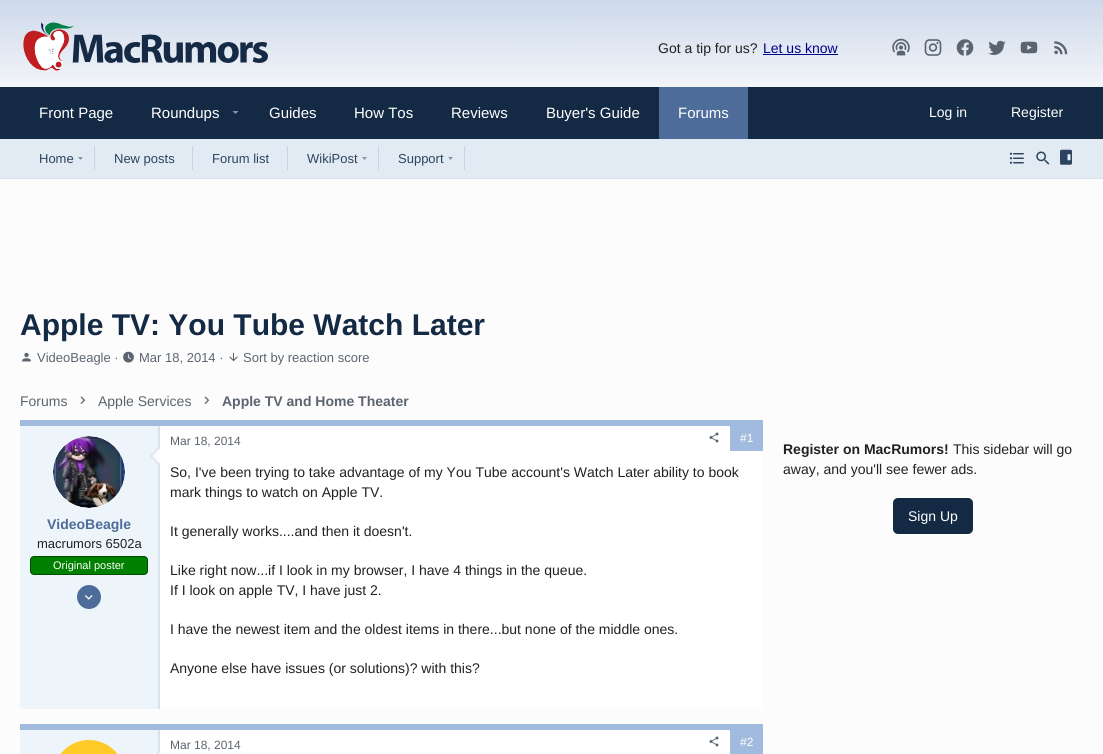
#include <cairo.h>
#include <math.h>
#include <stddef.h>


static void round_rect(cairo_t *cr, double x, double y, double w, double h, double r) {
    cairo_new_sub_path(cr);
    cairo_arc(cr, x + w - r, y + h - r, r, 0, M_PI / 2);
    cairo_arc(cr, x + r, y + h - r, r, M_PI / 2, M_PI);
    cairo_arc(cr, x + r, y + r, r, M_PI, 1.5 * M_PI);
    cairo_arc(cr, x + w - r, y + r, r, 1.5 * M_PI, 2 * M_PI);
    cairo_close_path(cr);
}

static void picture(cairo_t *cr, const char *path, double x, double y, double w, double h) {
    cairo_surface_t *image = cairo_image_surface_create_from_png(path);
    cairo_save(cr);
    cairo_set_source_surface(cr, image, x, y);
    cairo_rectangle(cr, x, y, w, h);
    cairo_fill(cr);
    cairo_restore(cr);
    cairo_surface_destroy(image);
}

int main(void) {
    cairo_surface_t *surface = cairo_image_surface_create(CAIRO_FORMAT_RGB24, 1103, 754);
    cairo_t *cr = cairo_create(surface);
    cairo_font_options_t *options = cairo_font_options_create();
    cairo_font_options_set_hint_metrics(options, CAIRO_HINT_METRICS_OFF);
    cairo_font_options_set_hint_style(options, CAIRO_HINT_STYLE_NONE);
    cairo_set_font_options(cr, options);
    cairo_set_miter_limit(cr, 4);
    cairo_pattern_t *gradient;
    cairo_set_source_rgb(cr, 1, 1, 1);
    cairo_paint(cr);
    gradient = cairo_pattern_create_linear(551, 0, 552, 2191);
    cairo_pattern_add_color_stop_rgba(gradient, 0, 0.804, 0.851, 0.922, 1);
    cairo_pattern_add_color_stop_rgba(gradient, 0.05, 0.988, 0.988, 0.988, 1);
    cairo_set_source(cr, gradient);
    cairo_pattern_destroy(gradient);
    cairo_rectangle(cr, 0, 0, 1103, 754);
    cairo_fill(cr);
    picture(cr, "img1.png", 23, 22, 245, 49);
    cairo_select_font_face(cr, "Liberation Sans", CAIRO_FONT_SLANT_NORMAL, CAIRO_FONT_WEIGHT_NORMAL);
    cairo_set_font_size(cr, 14);
    cairo_set_source_rgb(cr, 0.129, 0.129, 0.129);
    cairo_move_to(cr, 658, 53);
    cairo_show_text(cr, "Got a tip for us?");
    cairo_set_source_rgb(cr, 0, 0, 0.533);
    cairo_move_to(cr, 763, 53);
    cairo_show_text(cr, "Let us know");
    cairo_rectangle(cr, 763, 54, 75, 1);
    cairo_fill(cr);
    picture(cr, "img2.png", 892, 38, 18, 18);
    picture(cr, "img3.png", 924, 39, 18, 17);
    picture(cr, "img4.png", 956, 39, 18, 17);
    picture(cr, "img5.png", 988, 40, 18, 15);
    picture(cr, "img6.png", 1020, 41, 18, 13);
    picture(cr, "img7.png", 1054, 41, 14, 14);
    cairo_set_source_rgb(cr, 0.082, 0.165, 0.267);
    cairo_rectangle(cr, 0, 87, 1103, 52);
    cairo_fill(cr);
    cairo_set_font_size(cr, 15);
    cairo_set_source_rgb(cr, 1, 1, 1);
    cairo_move_to(cr, 39, 118);
    cairo_show_text(cr, "Front Page");
    cairo_move_to(cr, 151, 118);
    cairo_show_text(cr, "Roundups");
    cairo_set_source_rgb(cr, 0.541, 0.584, 0.635);
    cairo_new_path(cr);
    cairo_move_to(cr, 232.5, 111);
    cairo_line_to(cr, 235.5, 114);
    cairo_line_to(cr, 238.5, 111);
    cairo_close_path(cr);
    cairo_fill(cr);
    cairo_set_source_rgb(cr, 1, 1, 1);
    cairo_move_to(cr, 269, 118);
    cairo_show_text(cr, "Guides");
    cairo_move_to(cr, 354, 118);
    cairo_show_text(cr, "How Tos");
    cairo_move_to(cr, 451, 118);
    cairo_show_text(cr, "Reviews");
    cairo_move_to(cr, 546, 118);
    cairo_show_text(cr, "Buyer's Guide");
    cairo_set_source_rgb(cr, 0.302, 0.424, 0.6);
    cairo_rectangle(cr, 659, 87, 89, 52);
    cairo_fill(cr);
    cairo_set_source_rgb(cr, 1, 1, 1);
    cairo_move_to(cr, 678, 118);
    cairo_show_text(cr, "Forums");
    cairo_set_font_size(cr, 14);
    cairo_move_to(cr, 929, 117);
    cairo_show_text(cr, "Log in");
    cairo_move_to(cr, 1011, 117);
    cairo_show_text(cr, "Register");
    cairo_set_source_rgb(cr, 0.886, 0.918, 0.953);
    cairo_rectangle(cr, 0, 139, 1103, 39);
    cairo_fill(cr);
    cairo_set_source_rgb(cr, 0.843, 0.886, 0.937);
    cairo_rectangle(cr, 0, 178, 1103, 1);
    cairo_fill(cr);
    cairo_set_source_rgb(cr, 0.784, 0.835, 0.902);
    cairo_rectangle(cr, 94, 146, 1, 24);
    cairo_fill(cr);
    cairo_set_font_size(cr, 13);
    cairo_set_source_rgb(cr, 0.173, 0.263, 0.373);
    cairo_move_to(cr, 39, 163);
    cairo_show_text(cr, "Home");
    cairo_set_source_rgb(cr, 0.529, 0.592, 0.663);
    cairo_new_path(cr);
    cairo_move_to(cr, 78, 157);
    cairo_line_to(cr, 80.5, 160);
    cairo_line_to(cr, 83, 157);
    cairo_close_path(cr);
    cairo_fill(cr);
    cairo_set_source_rgb(cr, 0.784, 0.835, 0.902);
    cairo_rectangle(cr, 192, 146, 1, 24);
    cairo_fill(cr);
    cairo_set_source_rgb(cr, 0.173, 0.263, 0.373);
    cairo_move_to(cr, 114, 163);
    cairo_show_text(cr, "New posts");
    cairo_set_source_rgb(cr, 0.784, 0.835, 0.902);
    cairo_rectangle(cr, 287, 146, 1, 24);
    cairo_fill(cr);
    cairo_set_source_rgb(cr, 0.173, 0.263, 0.373);
    cairo_move_to(cr, 212, 163);
    cairo_show_text(cr, "Forum list");
    cairo_set_source_rgb(cr, 0.784, 0.835, 0.902);
    cairo_rectangle(cr, 378, 146, 1, 24);
    cairo_fill(cr);
    cairo_set_source_rgb(cr, 0.173, 0.263, 0.373);
    cairo_move_to(cr, 307, 163);
    cairo_show_text(cr, "WikiPost");
    cairo_set_source_rgb(cr, 0.529, 0.592, 0.663);
    cairo_new_path(cr);
    cairo_move_to(cr, 362, 157);
    cairo_line_to(cr, 364.5, 160);
    cairo_line_to(cr, 367, 157);
    cairo_close_path(cr);
    cairo_fill(cr);
    cairo_set_source_rgb(cr, 0.784, 0.835, 0.902);
    cairo_rectangle(cr, 464, 146, 1, 24);
    cairo_fill(cr);
    cairo_set_source_rgb(cr, 0.173, 0.263, 0.373);
    cairo_move_to(cr, 398, 163);
    cairo_show_text(cr, "Support");
    cairo_set_source_rgb(cr, 0.529, 0.592, 0.663);
    cairo_new_path(cr);
    cairo_move_to(cr, 448, 157);
    cairo_line_to(cr, 450.5, 160);
    cairo_line_to(cr, 453, 157);
    cairo_close_path(cr);
    cairo_fill(cr);
    picture(cr, "img8.png", 1009, 152, 15, 12);
    picture(cr, "img9.png", 1036, 151, 14, 14);
    picture(cr, "img10.png", 1060, 149, 12, 16);
    cairo_select_font_face(cr, "Liberation Sans", CAIRO_FONT_SLANT_NORMAL, CAIRO_FONT_WEIGHT_BOLD);
    cairo_set_font_size(cr, 30);
    cairo_set_source_rgb(cr, 0.082, 0.165, 0.267);
    cairo_move_to(cr, 20, 335);
    cairo_show_text(cr, "Apple TV: You Tube Watch Later");
    picture(cr, "img11.png", 22, 352, 9, 10);
    cairo_select_font_face(cr, "Liberation Sans", CAIRO_FONT_SLANT_NORMAL, CAIRO_FONT_WEIGHT_NORMAL);
    cairo_set_font_size(cr, 13);
    cairo_set_source_rgb(cr, 0.361, 0.396, 0.435);
    cairo_move_to(cr, 37, 362);
    cairo_show_text(cr, "VideoBeagle ·");
    picture(cr, "img12.png", 123, 351, 11, 12);
    cairo_move_to(cr, 139, 362);
    cairo_show_text(cr, "Mar 18, 2014 ·");
    picture(cr, "img13.png", 229, 352, 9, 10);
    cairo_move_to(cr, 243, 362);
    cairo_show_text(cr, "Sort by reaction score");
    cairo_set_font_size(cr, 14);
    cairo_move_to(cr, 20, 406);
    cairo_show_text(cr, "Forums");
    picture(cr, "img14.png", 80, 396, 6, 8);
    cairo_move_to(cr, 98, 406);
    cairo_show_text(cr, "Apple Services");
    picture(cr, "img14.png", 204, 396, 6, 8);
    cairo_select_font_face(cr, "Liberation Sans", CAIRO_FONT_SLANT_NORMAL, CAIRO_FONT_WEIGHT_BOLD);
    cairo_move_to(cr, 222, 406);
    cairo_show_text(cr, "Apple TV and Home Theater");
    cairo_set_source_rgb(cr, 0.631, 0.733, 0.875);
    cairo_rectangle(cr, 20, 420, 743, 6);
    cairo_fill(cr);
    cairo_set_source_rgb(cr, 0.929, 0.957, 0.98);
    cairo_new_path(cr);
    cairo_move_to(cr, 23, 426);
    cairo_line_to(cr, 160, 426);
    cairo_line_to(cr, 160, 709);
    cairo_line_to(cr, 23, 709);
    cairo_curve_to(cr, 21.5, 709, 20, 707.5, 20, 706);
    cairo_line_to(cr, 20, 429);
    cairo_curve_to(cr, 20, 427.5, 21.5, 426, 23, 426);
    cairo_close_path(cr);
    cairo_fill(cr);
    cairo_set_source_rgb(cr, 0.843, 0.886, 0.937);
    cairo_rectangle(cr, 158, 426, 2, 283);
    cairo_fill(cr);
    cairo_set_source_rgb(cr, 1, 1, 1);
    cairo_arc(cr, 89, 472, 36, 0, 2 * M_PI);
    cairo_fill(cr);
    picture(cr, "img15.png", 53, 436, 72, 72);
    cairo_set_source_rgb(cr, 0.843, 0.886, 0.937);
    cairo_new_path(cr);
    cairo_move_to(cr, 160, 446);
    cairo_line_to(cr, 160, 466);
    cairo_line_to(cr, 150, 456);
    cairo_close_path(cr);
    cairo_fill(cr);
    cairo_set_source_rgb(cr, 0.988, 0.988, 0.988);
    cairo_new_path(cr);
    cairo_move_to(cr, 160, 448);
    cairo_line_to(cr, 160, 464);
    cairo_line_to(cr, 152, 456);
    cairo_close_path(cr);
    cairo_fill(cr);
    cairo_set_source_rgb(cr, 0.302, 0.424, 0.6);
    cairo_move_to(cr, 47, 529);
    cairo_show_text(cr, "VideoBeagle");
    cairo_select_font_face(cr, "Liberation Sans", CAIRO_FONT_SLANT_NORMAL, CAIRO_FONT_WEIGHT_NORMAL);
    cairo_set_font_size(cr, 13);
    cairo_set_source_rgb(cr, 0.129, 0.129, 0.129);
    cairo_move_to(cr, 37, 548);
    cairo_show_text(cr, "macrumors 6502a");
    cairo_set_source_rgb(cr, 0, 0.502, 0);
    round_rect(cr, 30.5, 556.5, 117, 18, 3.5);
    cairo_fill_preserve(cr);
    cairo_set_source_rgb(cr, 0, 0.302, 0);
    cairo_set_line_width(cr, 1);
    cairo_stroke(cr);
    cairo_set_font_size(cr, 11);
    cairo_set_source_rgb(cr, 1, 1, 1);
    cairo_move_to(cr, 53, 569);
    cairo_show_text(cr, "Original poster");
    cairo_set_source_rgb(cr, 0.302, 0.424, 0.6);
    cairo_new_path(cr);
    cairo_arc(cr, 89, 597, 12, 0, 2 * M_PI);
    cairo_fill(cr);
    picture(cr, "img16.png", 85, 595, 8, 5);
    cairo_set_source_rgb(cr, 1, 1, 1);
    cairo_new_path(cr);
    cairo_move_to(cr, 160, 426);
    cairo_line_to(cr, 760, 426);
    cairo_curve_to(cr, 761.5, 426, 763, 427.5, 763, 429);
    cairo_line_to(cr, 763, 706);
    cairo_curve_to(cr, 763, 707.5, 761.5, 709, 760, 709);
    cairo_line_to(cr, 160, 709);
    cairo_close_path(cr);
    cairo_fill(cr);
    cairo_set_font_size(cr, 12);
    cairo_set_source_rgb(cr, 0.361, 0.396, 0.435);
    cairo_move_to(cr, 170, 445);
    cairo_show_text(cr, "Mar 18, 2014");
    picture(cr, "img17.png", 709, 432, 10, 11);
    cairo_set_source_rgb(cr, 0.631, 0.733, 0.875);
    cairo_rectangle(cr, 730, 426, 33, 25);
    cairo_fill(cr);
    cairo_set_source_rgb(cr, 1, 1, 1);
    cairo_move_to(cr, 740, 442);
    cairo_show_text(cr, "#1");
    cairo_set_font_size(cr, 14);
    cairo_set_source_rgb(cr, 0.129, 0.129, 0.129);
    cairo_move_to(cr, 170, 477);
    cairo_show_text(cr, "So, I've been trying to take advantage of my You Tube account's Watch Later ability to book");
    cairo_move_to(cr, 170, 497);
    cairo_show_text(cr, "mark things to watch on Apple TV.");
    cairo_move_to(cr, 170, 536);
    cairo_show_text(cr, "It generally works....and then it doesn't.");
    cairo_move_to(cr, 170, 575);
    cairo_show_text(cr, "Like right now...if I look in my browser, I have 4 things in the queue.");
    cairo_move_to(cr, 170, 595);
    cairo_show_text(cr, "If I look on apple TV, I have just 2.");
    cairo_move_to(cr, 170, 634);
    cairo_show_text(cr, "I have the newest item and the oldest items in there...but none of the middle ones.");
    cairo_move_to(cr, 170, 673);
    cairo_show_text(cr, "Anyone else have issues (or solutions)? with this?");
    cairo_set_source_rgb(cr, 0.631, 0.733, 0.875);
    cairo_rectangle(cr, 20, 724, 743, 6);
    cairo_fill(cr);
    cairo_set_source_rgb(cr, 0.929, 0.957, 0.98);
    cairo_new_path(cr);
    cairo_move_to(cr, 23, 730);
    cairo_line_to(cr, 160, 730);
    cairo_line_to(cr, 160, 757);
    cairo_line_to(cr, 23, 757);
    cairo_curve_to(cr, 21.5, 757, 20, 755.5, 20, 754);
    cairo_line_to(cr, 20, 733);
    cairo_curve_to(cr, 20, 731.5, 21.5, 730, 23, 730);
    cairo_close_path(cr);
    cairo_fill(cr);
    cairo_set_source_rgb(cr, 0.843, 0.886, 0.937);
    cairo_rectangle(cr, 158, 730, 2, 24);
    cairo_fill(cr);
    cairo_set_source_rgb(cr, 1, 0.792, 0.157);
    round_rect(cr, 53, 740, 72, 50, 36);
    cairo_fill(cr);
    cairo_set_source_rgb(cr, 0.843, 0.886, 0.937);
    cairo_new_path(cr);
    cairo_move_to(cr, 160, 750);
    cairo_line_to(cr, 160, 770);
    cairo_line_to(cr, 150, 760);
    cairo_close_path(cr);
    cairo_fill(cr);
    cairo_set_source_rgb(cr, 0.988, 0.988, 0.988);
    cairo_new_path(cr);
    cairo_move_to(cr, 160, 752);
    cairo_line_to(cr, 160, 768);
    cairo_line_to(cr, 152, 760);
    cairo_close_path(cr);
    cairo_fill(cr);
    cairo_set_source_rgb(cr, 1, 1, 1);
    cairo_rectangle(cr, 160, 730, 570, 24);
    cairo_fill(cr);
    cairo_set_font_size(cr, 12);
    cairo_set_source_rgb(cr, 0.361, 0.396, 0.435);
    cairo_move_to(cr, 170, 749);
    cairo_show_text(cr, "Mar 18, 2014");
    picture(cr, "img17.png", 709, 736, 10, 11);
    cairo_set_source_rgb(cr, 0.631, 0.733, 0.875);
    cairo_rectangle(cr, 730, 730, 33, 24);
    cairo_fill(cr);
    cairo_set_source_rgb(cr, 1, 1, 1);
    cairo_move_to(cr, 740, 746);
    cairo_show_text(cr, "#2");
    cairo_select_font_face(cr, "Liberation Sans", CAIRO_FONT_SLANT_NORMAL, CAIRO_FONT_WEIGHT_BOLD);
    cairo_set_font_size(cr, 14);
    cairo_set_source_rgb(cr, 0.129, 0.129, 0.129);
    cairo_move_to(cr, 783, 454);
    cairo_show_text(cr, "Register on MacRumors!");
    cairo_select_font_face(cr, "Liberation Sans", CAIRO_FONT_SLANT_NORMAL, CAIRO_FONT_WEIGHT_NORMAL);
    cairo_move_to(cr, 953, 454);
    cairo_show_text(cr, "This sidebar will go");
    cairo_move_to(cr, 783, 474);
    cairo_show_text(cr, "away, and you'll see fewer ads.");
    cairo_set_source_rgb(cr, 0.082, 0.165, 0.267);
    round_rect(cr, 893, 498, 80, 36, 5);
    cairo_fill(cr);
    cairo_set_source_rgb(cr, 1, 1, 1);
    cairo_move_to(cr, 908, 521);
    cairo_show_text(cr, "Sign Up");
    cairo_surface_write_to_png(surface, "page.png");
    cairo_font_options_destroy(options);
    cairo_destroy(cr);
    cairo_surface_destroy(surface);
    return 0;
}
